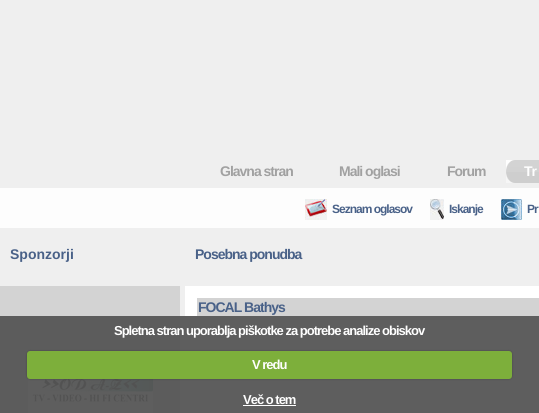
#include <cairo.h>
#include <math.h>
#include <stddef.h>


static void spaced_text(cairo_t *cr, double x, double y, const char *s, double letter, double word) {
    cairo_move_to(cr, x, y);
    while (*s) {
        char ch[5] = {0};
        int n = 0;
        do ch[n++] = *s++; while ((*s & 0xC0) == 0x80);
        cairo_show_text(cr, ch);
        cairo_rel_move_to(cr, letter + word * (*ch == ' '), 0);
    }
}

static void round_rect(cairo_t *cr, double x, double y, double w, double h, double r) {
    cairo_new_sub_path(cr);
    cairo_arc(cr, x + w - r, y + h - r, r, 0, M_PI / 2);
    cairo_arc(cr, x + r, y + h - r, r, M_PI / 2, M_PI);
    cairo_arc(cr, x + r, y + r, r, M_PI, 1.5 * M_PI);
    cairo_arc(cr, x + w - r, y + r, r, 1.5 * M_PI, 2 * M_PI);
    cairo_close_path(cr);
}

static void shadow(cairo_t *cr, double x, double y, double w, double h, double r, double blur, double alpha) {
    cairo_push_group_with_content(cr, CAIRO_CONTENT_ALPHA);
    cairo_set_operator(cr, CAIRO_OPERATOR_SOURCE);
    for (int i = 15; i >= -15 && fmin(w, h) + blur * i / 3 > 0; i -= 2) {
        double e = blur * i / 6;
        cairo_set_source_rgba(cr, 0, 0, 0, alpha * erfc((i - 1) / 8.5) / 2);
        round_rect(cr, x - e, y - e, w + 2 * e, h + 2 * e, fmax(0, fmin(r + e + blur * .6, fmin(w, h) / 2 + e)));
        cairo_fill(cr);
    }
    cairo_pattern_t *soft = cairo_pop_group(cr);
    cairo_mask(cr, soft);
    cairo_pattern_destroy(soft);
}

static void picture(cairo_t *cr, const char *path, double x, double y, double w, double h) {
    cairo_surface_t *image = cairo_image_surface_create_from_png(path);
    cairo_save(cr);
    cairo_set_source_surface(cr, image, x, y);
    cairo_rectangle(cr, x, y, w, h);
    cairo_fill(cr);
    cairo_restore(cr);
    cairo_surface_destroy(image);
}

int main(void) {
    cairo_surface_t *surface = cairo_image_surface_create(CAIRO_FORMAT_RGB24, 539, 413);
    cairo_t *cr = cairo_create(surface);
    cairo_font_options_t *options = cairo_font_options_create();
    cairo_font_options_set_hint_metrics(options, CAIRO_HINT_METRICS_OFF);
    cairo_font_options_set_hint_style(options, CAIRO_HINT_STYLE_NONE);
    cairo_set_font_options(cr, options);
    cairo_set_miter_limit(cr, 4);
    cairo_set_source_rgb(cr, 0.937, 0.937, 0.937);
    cairo_paint(cr);
    cairo_set_source_rgb(cr, 0.369, 0.369, 0.369);
    cairo_rectangle(cr, 180, 316, 359, 97);
    cairo_fill(cr);
    cairo_select_font_face(cr, "Liberation Sans", CAIRO_FONT_SLANT_NORMAL, CAIRO_FONT_WEIGHT_BOLD);
    cairo_set_font_size(cr, 14);
    cairo_set_source_rgb(cr, 0.631, 0.631, 0.631);
    spaced_text(cr, 220, 176, "Glavna stran", -1, 0);
    spaced_text(cr, 339, 176, "Mali oglasi", -1, 0);
    spaced_text(cr, 447, 176, "Forum", -1, 0);
    picture(cr, "img1.png", 506, 160, 33, 23);
    cairo_set_source_rgb(cr, 0.996, 0.996, 0.996);
    spaced_text(cr, 524, 176, "Tr", -1, 0);
    cairo_set_source_rgb(cr, 0.992, 0.992, 0.992);
    cairo_rectangle(cr, 0, 188, 539, 40);
    cairo_fill(cr);
    picture(cr, "img2.png", 305, 199, 22, 21);
    cairo_set_font_size(cr, 12);
    cairo_set_source_rgb(cr, 0.286, 0.38, 0.533);
    spaced_text(cr, 332, 213, "Seznam oglasov", -1, 0);
    picture(cr, "img3.png", 430, 199, 14, 21);
    spaced_text(cr, 449, 213, "Iskanje", -1, 0);
    picture(cr, "img4.png", 501, 199, 21, 21);
    spaced_text(cr, 527, 213, "Pr", -1, 0);
    cairo_set_font_size(cr, 14);
    cairo_move_to(cr, 10, 259);
    cairo_show_text(cr, "Sponzorji");
    cairo_set_source_rgb(cr, 0.827, 0.827, 0.827);
    cairo_rectangle(cr, 0, 286, 180, 30);
    cairo_fill(cr);
    cairo_set_source_rgb(cr, 0.361, 0.361, 0.361);
    cairo_rectangle(cr, 0, 316, 180, 97);
    cairo_fill(cr);
    picture(cr, "img5.png", 28, 378, 125, 35);
    cairo_set_source_rgb(cr, 0.286, 0.38, 0.533);
    spaced_text(cr, 195, 259, "Posebna ponudba", -1, 0);
    cairo_set_source_rgb(cr, 1, 1, 1);
    cairo_rectangle(cr, 185, 286, 354, 30);
    cairo_fill(cr);
    cairo_set_source_rgb(cr, 0.827, 0.827, 0.827);
    cairo_rectangle(cr, 197, 298, 342, 18);
    cairo_fill(cr);
    cairo_set_source_rgb(cr, 0.286, 0.38, 0.533);
    spaced_text(cr, 198, 312, "FOCAL Bathys", -1, 0);
    cairo_set_font_size(cr, 13);
    cairo_set_source_rgb(cr, 0.996, 0.996, 0.996);
    spaced_text(cr, 114, 335, "Spletna stran uporablja piškotke za potrebe analize obiskov", -1, 0);
    cairo_set_source_rgb(cr, 0, 0, 0);
    shadow(cr, 27, 351, 485, 28, 3, 1, 0.25);
    cairo_set_source_rgb(cr, 0.49, 0.686, 0.231);
    round_rect(cr, 27, 351, 485, 28, 3);
    cairo_fill(cr);
    cairo_set_source_rgb(cr, 0.996, 0.996, 0.996);
    spaced_text(cr, 252, 369, "V redu", -1, 0);
    spaced_text(cr, 243, 404, "Več o tem", -1, 0);
    cairo_set_source_rgb(cr, 1, 1, 1);
    cairo_rectangle(cr, 243, 405, 53, 1);
    cairo_fill(cr);
    cairo_surface_write_to_png(surface, "page.png");
    cairo_font_options_destroy(options);
    cairo_destroy(cr);
    cairo_surface_destroy(surface);
    return 0;
}
